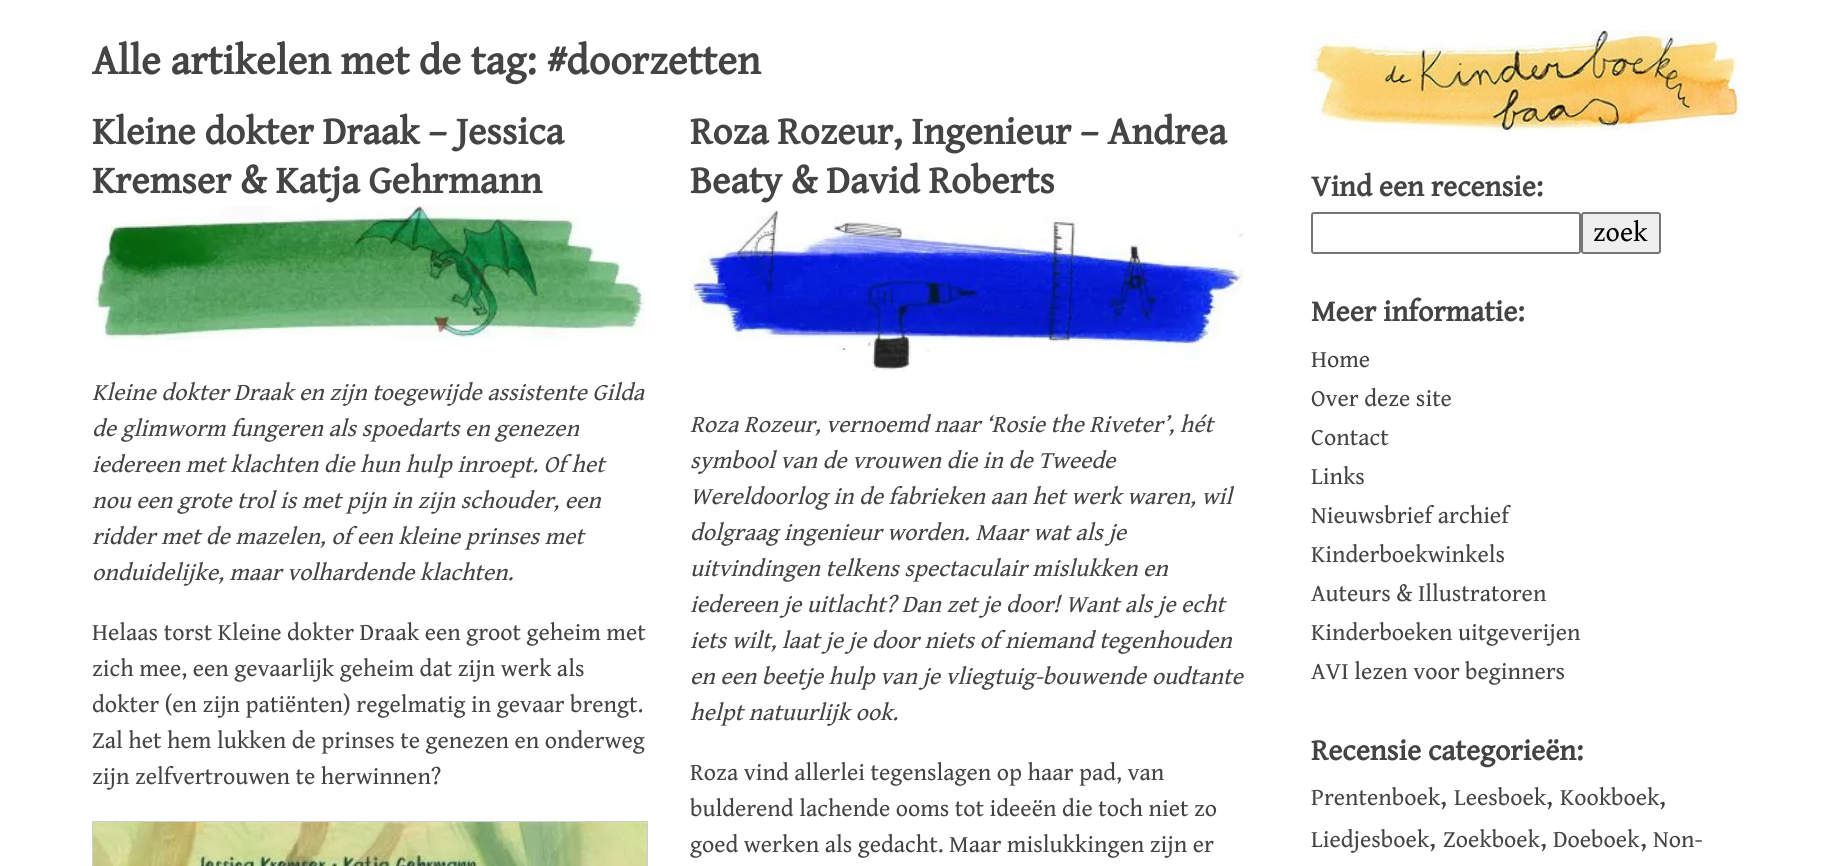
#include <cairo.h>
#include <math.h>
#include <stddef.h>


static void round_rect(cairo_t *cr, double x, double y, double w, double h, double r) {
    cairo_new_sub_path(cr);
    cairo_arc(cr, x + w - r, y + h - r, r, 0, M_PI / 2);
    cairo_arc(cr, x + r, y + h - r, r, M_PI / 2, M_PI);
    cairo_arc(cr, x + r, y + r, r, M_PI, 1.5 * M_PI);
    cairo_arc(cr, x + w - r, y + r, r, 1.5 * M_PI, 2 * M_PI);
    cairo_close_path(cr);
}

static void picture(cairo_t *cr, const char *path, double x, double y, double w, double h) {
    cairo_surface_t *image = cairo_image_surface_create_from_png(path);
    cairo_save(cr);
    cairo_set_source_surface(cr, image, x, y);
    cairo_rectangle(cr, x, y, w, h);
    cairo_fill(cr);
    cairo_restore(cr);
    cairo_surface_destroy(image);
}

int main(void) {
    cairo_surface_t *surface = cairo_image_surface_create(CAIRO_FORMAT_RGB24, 1831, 866);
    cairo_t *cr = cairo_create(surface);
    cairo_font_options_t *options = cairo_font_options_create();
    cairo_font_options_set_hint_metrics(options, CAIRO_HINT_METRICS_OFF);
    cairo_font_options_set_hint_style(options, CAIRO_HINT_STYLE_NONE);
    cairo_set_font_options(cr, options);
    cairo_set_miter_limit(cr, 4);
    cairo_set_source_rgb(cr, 1, 1, 1);
    cairo_paint(cr);
    cairo_select_font_face(cr, "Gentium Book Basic", CAIRO_FONT_SLANT_NORMAL, CAIRO_FONT_WEIGHT_BOLD);
    cairo_set_font_size(cr, 42);
    cairo_set_source_rgb(cr, 0.267, 0.267, 0.267);
    cairo_move_to(cr, 92, 74);
    cairo_show_text(cr, "Alle artikelen met de tag: #doorzetten");
    cairo_set_font_size(cr, 39);
    cairo_move_to(cr, 92, 144);
    cairo_show_text(cr, "Kleine dokter Draak – Jessica");
    cairo_move_to(cr, 92, 193);
    cairo_show_text(cr, "Kremser & Katja Gehrmann");
    picture(cr, "img1.png", 92, 205, 553, 136);
    cairo_select_font_face(cr, "Gentium Book Basic", CAIRO_FONT_SLANT_ITALIC, CAIRO_FONT_WEIGHT_NORMAL);
    cairo_set_font_size(cr, 24);
    cairo_move_to(cr, 92, 400);
    cairo_show_text(cr, "Kleine dokter Draak en zijn toegewijde assistente Gilda");
    cairo_move_to(cr, 92, 436);
    cairo_show_text(cr, "de glimworm fungeren als spoedarts en genezen");
    cairo_move_to(cr, 92, 472);
    cairo_show_text(cr, "iedereen met klachten die hun hulp inroept. Of het");
    cairo_move_to(cr, 92, 508);
    cairo_show_text(cr, "nou een grote trol is met pijn in zijn schouder, een");
    cairo_move_to(cr, 92, 544);
    cairo_show_text(cr, "ridder met de mazelen, of een kleine prinses met");
    cairo_move_to(cr, 92, 580);
    cairo_show_text(cr, "onduidelijke, maar volhardende klachten.");
    cairo_select_font_face(cr, "Gentium Book Basic", CAIRO_FONT_SLANT_NORMAL, CAIRO_FONT_WEIGHT_NORMAL);
    cairo_move_to(cr, 92, 640);
    cairo_show_text(cr, "Helaas torst Kleine dokter Draak een groot geheim met");
    cairo_move_to(cr, 92, 676);
    cairo_show_text(cr, "zich mee, een gevaarlijk geheim dat zijn werk als");
    cairo_move_to(cr, 92, 712);
    cairo_show_text(cr, "dokter (en zijn patiënten) regelmatig in gevaar brengt.");
    cairo_move_to(cr, 92, 748);
    cairo_show_text(cr, "Zal het hem lukken de prinses te genezen en onderweg");
    cairo_move_to(cr, 92, 784);
    cairo_show_text(cr, "zijn zelfvertrouwen te herwinnen?");
    cairo_rectangle(cr, 93, 822, 554, 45);
    cairo_set_source_rgb(cr, 0.808, 0.808, 0.808);
    cairo_stroke(cr);
    picture(cr, "img2.png", 93, 822, 554, 44);
    cairo_select_font_face(cr, "Gentium Book Basic", CAIRO_FONT_SLANT_NORMAL, CAIRO_FONT_WEIGHT_BOLD);
    cairo_set_font_size(cr, 39);
    cairo_set_source_rgb(cr, 0.267, 0.267, 0.267);
    cairo_move_to(cr, 690, 144);
    cairo_show_text(cr, "Roza Rozeur, Ingenieur – Andrea");
    cairo_move_to(cr, 690, 193);
    cairo_show_text(cr, "Beaty & David Roberts");
    picture(cr, "img3.png", 690, 210, 554, 162);
    cairo_select_font_face(cr, "Gentium Book Basic", CAIRO_FONT_SLANT_ITALIC, CAIRO_FONT_WEIGHT_NORMAL);
    cairo_set_font_size(cr, 24);
    cairo_move_to(cr, 690, 432);
    cairo_show_text(cr, "Roza Rozeur, vernoemd naar ‘Rosie the Riveter’, hét");
    cairo_move_to(cr, 690, 468);
    cairo_show_text(cr, "symbool van de vrouwen die in de Tweede");
    cairo_move_to(cr, 690, 504);
    cairo_show_text(cr, "Wereldoorlog in de fabrieken aan het werk waren, wil");
    cairo_move_to(cr, 690, 540);
    cairo_show_text(cr, "dolgraag ingenieur worden. Maar wat als je");
    cairo_move_to(cr, 690, 576);
    cairo_show_text(cr, "uitvindingen telkens spectaculair mislukken en");
    cairo_move_to(cr, 690, 612);
    cairo_show_text(cr, "iedereen je uitlacht? Dan zet je door! Want als je echt");
    cairo_move_to(cr, 690, 648);
    cairo_show_text(cr, "iets wilt, laat je je door niets of niemand tegenhouden");
    cairo_move_to(cr, 690, 684);
    cairo_show_text(cr, "en een beetje hulp van je vliegtuig-bouwende oudtante");
    cairo_move_to(cr, 690, 720);
    cairo_show_text(cr, "helpt natuurlijk ook.");
    cairo_select_font_face(cr, "Gentium Book Basic", CAIRO_FONT_SLANT_NORMAL, CAIRO_FONT_WEIGHT_NORMAL);
    cairo_move_to(cr, 690, 780);
    cairo_show_text(cr, "Roza vind allerlei tegenslagen op haar pad, van");
    cairo_move_to(cr, 690, 816);
    cairo_show_text(cr, "bulderend lachende ooms tot ideeën die toch niet zo");
    cairo_move_to(cr, 690, 852);
    cairo_show_text(cr, "goed werken als gedacht. Maar mislukkingen zijn er");
    picture(cr, "img4.png", 1311, 30, 429, 102);
    cairo_select_font_face(cr, "Gentium Book Basic", CAIRO_FONT_SLANT_NORMAL, CAIRO_FONT_WEIGHT_BOLD);
    cairo_set_font_size(cr, 30);
    cairo_move_to(cr, 1311, 196);
    cairo_show_text(cr, "Vind een recensie:");
    round_rect(cr, 1312, 213, 268, 40, 2);
    cairo_set_source_rgb(cr, 0.463, 0.463, 0.463);
    cairo_stroke(cr);
    cairo_set_source_rgb(cr, 0.937, 0.937, 0.937);
    round_rect(cr, 1582, 213, 78, 40, 2);
    cairo_fill_preserve(cr);
    cairo_set_source_rgb(cr, 0.463, 0.463, 0.463);
    cairo_stroke(cr);
    cairo_select_font_face(cr, "Gentium Book Basic", CAIRO_FONT_SLANT_NORMAL, CAIRO_FONT_WEIGHT_NORMAL);
    cairo_set_font_size(cr, 28);
    cairo_set_source_rgb(cr, 0, 0, 0);
    cairo_move_to(cr, 1593, 241);
    cairo_show_text(cr, "zoek");
    cairo_select_font_face(cr, "Gentium Book Basic", CAIRO_FONT_SLANT_NORMAL, CAIRO_FONT_WEIGHT_BOLD);
    cairo_set_font_size(cr, 30);
    cairo_set_source_rgb(cr, 0.267, 0.267, 0.267);
    cairo_move_to(cr, 1311, 321);
    cairo_show_text(cr, "Meer informatie:");
    cairo_select_font_face(cr, "Gentium Book Basic", CAIRO_FONT_SLANT_NORMAL, CAIRO_FONT_WEIGHT_NORMAL);
    cairo_set_font_size(cr, 24);
    cairo_move_to(cr, 1311, 367);
    cairo_show_text(cr, "Home");
    cairo_move_to(cr, 1311, 406);
    cairo_show_text(cr, "Over deze site");
    cairo_move_to(cr, 1311, 445);
    cairo_show_text(cr, "Contact");
    cairo_move_to(cr, 1311, 484);
    cairo_show_text(cr, "Links");
    cairo_move_to(cr, 1311, 523);
    cairo_show_text(cr, "Nieuwsbrief archief");
    cairo_move_to(cr, 1311, 562);
    cairo_show_text(cr, "Kinderboekwinkels");
    cairo_move_to(cr, 1311, 601);
    cairo_show_text(cr, "Auteurs & Illustratoren");
    cairo_move_to(cr, 1311, 640);
    cairo_show_text(cr, "Kinderboeken uitgeverijen");
    cairo_move_to(cr, 1311, 679);
    cairo_show_text(cr, "AVI lezen voor beginners");
    cairo_select_font_face(cr, "Gentium Book Basic", CAIRO_FONT_SLANT_NORMAL, CAIRO_FONT_WEIGHT_BOLD);
    cairo_set_font_size(cr, 30);
    cairo_move_to(cr, 1311, 760);
    cairo_show_text(cr, "Recensie categorieën:");
    cairo_select_font_face(cr, "Gentium Book Basic", CAIRO_FONT_SLANT_NORMAL, CAIRO_FONT_WEIGHT_NORMAL);
    cairo_set_font_size(cr, 24);
    cairo_move_to(cr, 1311, 805);
    cairo_show_text(cr, "Prentenboek");
    cairo_set_font_size(cr, 28);
    cairo_move_to(cr, 1440, 805);
    cairo_show_text(cr, ",");
    cairo_set_font_size(cr, 24);
    cairo_move_to(cr, 1454, 805);
    cairo_show_text(cr, "Leesboek");
    cairo_set_font_size(cr, 28);
    cairo_move_to(cr, 1546, 805);
    cairo_show_text(cr, ",");
    cairo_set_font_size(cr, 24);
    cairo_move_to(cr, 1560, 805);
    cairo_show_text(cr, "Kookboek");
    cairo_set_font_size(cr, 28);
    cairo_move_to(cr, 1659, 805);
    cairo_show_text(cr, ",");
    cairo_set_font_size(cr, 24);
    cairo_move_to(cr, 1311, 847);
    cairo_show_text(cr, "Liedjesboek");
    cairo_set_font_size(cr, 28);
    cairo_move_to(cr, 1429, 847);
    cairo_show_text(cr, ",");
    cairo_set_font_size(cr, 24);
    cairo_move_to(cr, 1443, 847);
    cairo_show_text(cr, "Zoekboek");
    cairo_set_font_size(cr, 28);
    cairo_move_to(cr, 1540, 847);
    cairo_show_text(cr, ",");
    cairo_set_font_size(cr, 24);
    cairo_move_to(cr, 1553, 847);
    cairo_show_text(cr, "Doeboek");
    cairo_set_font_size(cr, 28);
    cairo_move_to(cr, 1640, 847);
    cairo_show_text(cr, ",");
    cairo_set_font_size(cr, 24);
    cairo_move_to(cr, 1653, 847);
    cairo_show_text(cr, "Non-");
    cairo_surface_write_to_png(surface, "page.png");
    cairo_font_options_destroy(options);
    cairo_destroy(cr);
    cairo_surface_destroy(surface);
    return 0;
}
